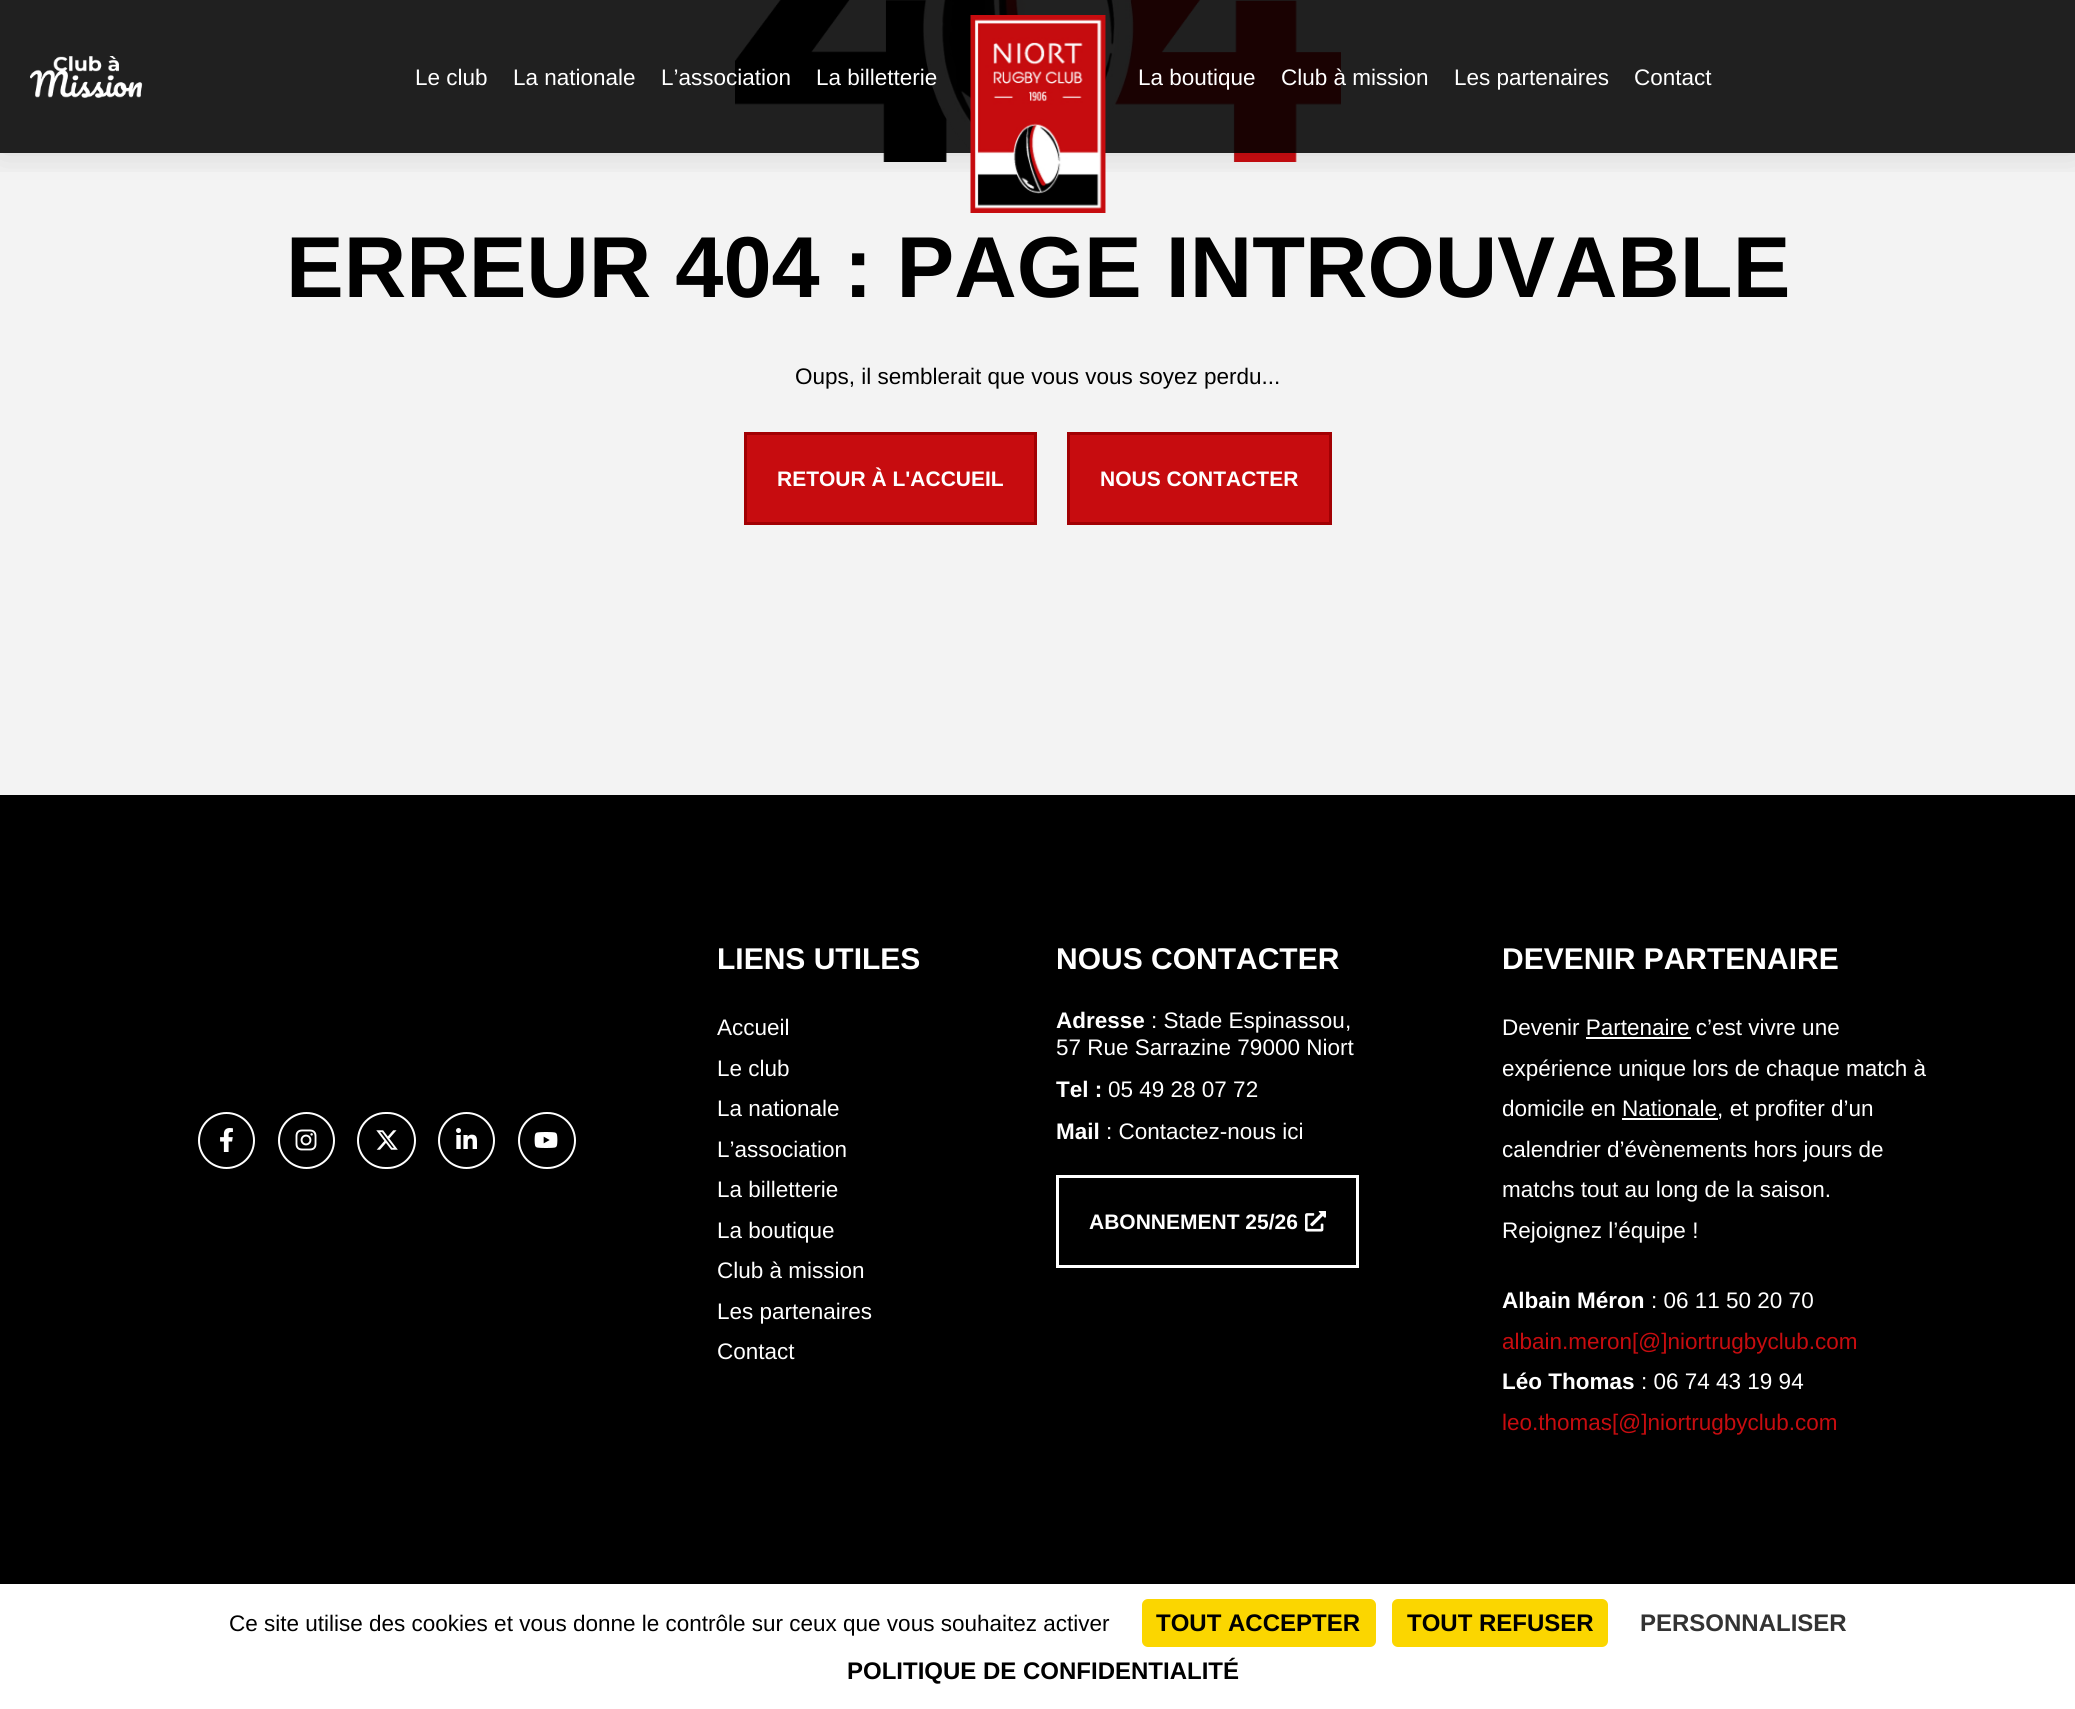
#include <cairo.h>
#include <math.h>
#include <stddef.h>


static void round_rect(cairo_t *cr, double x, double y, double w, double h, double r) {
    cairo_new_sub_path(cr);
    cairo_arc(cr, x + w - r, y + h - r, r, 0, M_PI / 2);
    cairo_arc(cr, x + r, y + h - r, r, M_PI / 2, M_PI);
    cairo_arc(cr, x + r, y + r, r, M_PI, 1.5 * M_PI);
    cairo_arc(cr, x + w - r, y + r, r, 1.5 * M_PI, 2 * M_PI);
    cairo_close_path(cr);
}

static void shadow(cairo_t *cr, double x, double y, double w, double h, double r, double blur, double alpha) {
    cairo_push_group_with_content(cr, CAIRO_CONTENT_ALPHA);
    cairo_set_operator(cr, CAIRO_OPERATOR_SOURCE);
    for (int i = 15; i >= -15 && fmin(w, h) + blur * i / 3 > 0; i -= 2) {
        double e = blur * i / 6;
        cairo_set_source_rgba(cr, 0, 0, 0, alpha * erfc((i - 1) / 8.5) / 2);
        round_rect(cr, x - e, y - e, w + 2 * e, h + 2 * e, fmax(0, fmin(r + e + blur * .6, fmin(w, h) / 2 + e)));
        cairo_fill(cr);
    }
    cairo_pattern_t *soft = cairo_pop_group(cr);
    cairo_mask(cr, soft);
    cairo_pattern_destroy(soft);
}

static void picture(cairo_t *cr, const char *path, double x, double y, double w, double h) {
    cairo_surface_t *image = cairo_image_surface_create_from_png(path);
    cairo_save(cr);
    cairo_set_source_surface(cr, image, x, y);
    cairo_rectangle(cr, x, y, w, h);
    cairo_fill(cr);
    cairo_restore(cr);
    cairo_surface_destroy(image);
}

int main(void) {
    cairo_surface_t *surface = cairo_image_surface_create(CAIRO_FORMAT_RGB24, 2075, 1709);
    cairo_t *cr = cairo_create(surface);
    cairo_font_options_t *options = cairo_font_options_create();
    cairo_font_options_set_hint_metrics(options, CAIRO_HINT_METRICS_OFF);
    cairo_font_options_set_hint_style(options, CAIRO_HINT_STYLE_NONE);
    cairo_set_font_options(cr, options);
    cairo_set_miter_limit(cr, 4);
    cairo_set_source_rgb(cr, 0.953, 0.953, 0.953);
    cairo_paint(cr);
    cairo_set_source_rgb(cr, 0.125, 0.125, 0.125);
    cairo_rectangle(cr, 0, 0, 2075, 153);
    cairo_fill(cr);
    picture(cr, "img3.png", 735, 0, 606, 162);
    cairo_save(cr);
    cairo_rectangle(cr, 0, 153, 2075, 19);
    cairo_clip(cr);
    cairo_set_source_rgb(cr, 0, 0, 0);
    shadow(cr, 0, 0, 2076, 153, 0, 19, 0.13);
    cairo_restore(cr);
    picture(cr, "img1.png", 30, 56, 113, 42);
    cairo_select_font_face(cr, "Liberation Sans", CAIRO_FONT_SLANT_NORMAL, CAIRO_FONT_WEIGHT_NORMAL);
    cairo_set_font_size(cr, 22.5);
    cairo_set_source_rgb(cr, 1, 1, 1);
    cairo_move_to(cr, 415, 85);
    cairo_show_text(cr, "Le club");
    cairo_move_to(cr, 513, 85);
    cairo_show_text(cr, "La nationale");
    cairo_move_to(cr, 661, 85);
    cairo_show_text(cr, "L’association");
    cairo_move_to(cr, 816, 85);
    cairo_show_text(cr, "La billetterie");
    picture(cr, "img2.png", 970, 15, 136, 198);
    cairo_move_to(cr, 1138, 85);
    cairo_show_text(cr, "La boutique");
    cairo_move_to(cr, 1281, 85);
    cairo_show_text(cr, "Club à mission");
    cairo_move_to(cr, 1454, 85);
    cairo_show_text(cr, "Les partenaires");
    cairo_move_to(cr, 1634, 85);
    cairo_show_text(cr, "Contact");
    cairo_select_font_face(cr, "Liberation Sans", CAIRO_FONT_SLANT_NORMAL, CAIRO_FONT_WEIGHT_BOLD);
    cairo_set_font_size(cr, 86.5);
    cairo_set_source_rgb(cr, 0, 0, 0);
    cairo_move_to(cr, 286, 297);
    cairo_show_text(cr, "ERREUR 404 : PAGE INTROUVABLE");
    cairo_select_font_face(cr, "Liberation Sans", CAIRO_FONT_SLANT_NORMAL, CAIRO_FONT_WEIGHT_NORMAL);
    cairo_set_font_size(cr, 22.5);
    cairo_move_to(cr, 795, 384);
    cairo_show_text(cr, "Oups, il semblerait que vous vous soyez perdu...");
    cairo_set_source_rgb(cr, 0.78, 0.047, 0.059);
    cairo_rectangle(cr, 745.5, 433.5, 290, 90);
    cairo_fill_preserve(cr);
    cairo_set_source_rgb(cr, 0.635, 0, 0.012);
    cairo_set_line_width(cr, 3);
    cairo_stroke(cr);
    cairo_select_font_face(cr, "Liberation Sans", CAIRO_FONT_SLANT_NORMAL, CAIRO_FONT_WEIGHT_BOLD);
    cairo_set_font_size(cr, 21);
    cairo_set_source_rgb(cr, 1, 1, 1);
    cairo_move_to(cr, 777, 486);
    cairo_show_text(cr, "RETOUR À L'ACCUEIL");
    cairo_set_source_rgb(cr, 0.78, 0.047, 0.059);
    cairo_rectangle(cr, 1068.5, 433.5, 262, 90);
    cairo_fill_preserve(cr);
    cairo_set_source_rgb(cr, 0.635, 0, 0.012);
    cairo_stroke(cr);
    cairo_set_source_rgb(cr, 1, 1, 1);
    cairo_move_to(cr, 1100, 486);
    cairo_show_text(cr, "NOUS CONTACTER");
    cairo_set_source_rgb(cr, 0, 0, 0);
    cairo_rectangle(cr, 0, 795, 2075, 789);
    cairo_fill(cr);
    cairo_arc(cr, 226.5, 1140.5, 27.5, 0, 2 * M_PI);
    cairo_set_source_rgb(cr, 1, 1, 1);
    cairo_set_line_width(cr, 2);
    cairo_stroke(cr);
    picture(cr, "img4.png", 220, 1128, 13, 24);
    cairo_arc(cr, 306.5, 1140.5, 27.5, 0, 2 * M_PI);
    cairo_stroke(cr);
    picture(cr, "img5.png", 295, 1129, 22, 22);
    round_rect(cr, 358, 1113, 57, 55, 27.5);
    cairo_stroke(cr);
    picture(cr, "img6.png", 376, 1130, 22, 20);
    cairo_arc(cr, 466.5, 1140.5, 27.5, 0, 2 * M_PI);
    cairo_stroke(cr);
    picture(cr, "img7.png", 456, 1128, 21, 21);
    round_rect(cr, 519, 1113, 56, 55, 27.5);
    cairo_stroke(cr);
    picture(cr, "img8.png", 534, 1132, 24, 16);
    cairo_set_font_size(cr, 30);
    cairo_move_to(cr, 717, 969);
    cairo_show_text(cr, "LIENS UTILES");
    cairo_select_font_face(cr, "Liberation Sans", CAIRO_FONT_SLANT_NORMAL, CAIRO_FONT_WEIGHT_NORMAL);
    cairo_set_font_size(cr, 22.5);
    cairo_move_to(cr, 717, 1035);
    cairo_show_text(cr, "Accueil");
    cairo_move_to(cr, 717, 1076);
    cairo_show_text(cr, "Le club");
    cairo_move_to(cr, 717, 1116);
    cairo_show_text(cr, "La nationale");
    cairo_move_to(cr, 717, 1157);
    cairo_show_text(cr, "L’association");
    cairo_move_to(cr, 717, 1197);
    cairo_show_text(cr, "La billetterie");
    cairo_move_to(cr, 717, 1238);
    cairo_show_text(cr, "La boutique");
    cairo_move_to(cr, 717, 1278);
    cairo_show_text(cr, "Club à mission");
    cairo_move_to(cr, 717, 1319);
    cairo_show_text(cr, "Les partenaires");
    cairo_move_to(cr, 717, 1359);
    cairo_show_text(cr, "Contact");
    cairo_select_font_face(cr, "Liberation Sans", CAIRO_FONT_SLANT_NORMAL, CAIRO_FONT_WEIGHT_BOLD);
    cairo_set_font_size(cr, 30);
    cairo_move_to(cr, 1056, 969);
    cairo_show_text(cr, "NOUS CONTACTER");
    cairo_set_font_size(cr, 22.5);
    cairo_move_to(cr, 1056, 1028);
    cairo_show_text(cr, "Adresse");
    cairo_select_font_face(cr, "Liberation Sans", CAIRO_FONT_SLANT_NORMAL, CAIRO_FONT_WEIGHT_NORMAL);
    cairo_move_to(cr, 1151, 1028);
    cairo_show_text(cr, ": Stade Espinassou,");
    cairo_move_to(cr, 1056, 1055);
    cairo_show_text(cr, "57 Rue Sarrazine 79000 Niort");
    cairo_select_font_face(cr, "Liberation Sans", CAIRO_FONT_SLANT_NORMAL, CAIRO_FONT_WEIGHT_BOLD);
    cairo_move_to(cr, 1056, 1097);
    cairo_show_text(cr, "Tel :");
    cairo_select_font_face(cr, "Liberation Sans", CAIRO_FONT_SLANT_NORMAL, CAIRO_FONT_WEIGHT_NORMAL);
    cairo_move_to(cr, 1108, 1097);
    cairo_show_text(cr, "05 49 28 07 72");
    cairo_select_font_face(cr, "Liberation Sans", CAIRO_FONT_SLANT_NORMAL, CAIRO_FONT_WEIGHT_BOLD);
    cairo_move_to(cr, 1056, 1139);
    cairo_show_text(cr, "Mail");
    cairo_select_font_face(cr, "Liberation Sans", CAIRO_FONT_SLANT_NORMAL, CAIRO_FONT_WEIGHT_NORMAL);
    cairo_move_to(cr, 1106, 1139);
    cairo_show_text(cr, ": Contactez-nous ici");
    cairo_rectangle(cr, 1057.5, 1176.5, 300, 90);
    cairo_set_line_width(cr, 3);
    cairo_stroke(cr);
    cairo_select_font_face(cr, "Liberation Sans", CAIRO_FONT_SLANT_NORMAL, CAIRO_FONT_WEIGHT_BOLD);
    cairo_set_font_size(cr, 21);
    cairo_move_to(cr, 1089, 1229);
    cairo_show_text(cr, "ABONNEMENT 25/26");
    picture(cr, "img9.png", 1305, 1211, 21, 21);
    cairo_set_font_size(cr, 30);
    cairo_move_to(cr, 1502, 969);
    cairo_show_text(cr, "DEVENIR PARTENAIRE");
    cairo_select_font_face(cr, "Liberation Sans", CAIRO_FONT_SLANT_NORMAL, CAIRO_FONT_WEIGHT_NORMAL);
    cairo_set_font_size(cr, 22.5);
    cairo_move_to(cr, 1502, 1035);
    cairo_show_text(cr, "Devenir Partenaire c’est vivre une");
    cairo_rectangle(cr, 1586, 1037, 105, 2);
    cairo_fill(cr);
    cairo_move_to(cr, 1502, 1076);
    cairo_show_text(cr, "expérience unique lors de chaque match à");
    cairo_move_to(cr, 1502, 1116);
    cairo_show_text(cr, "domicile en Nationale, et profiter d’un");
    cairo_rectangle(cr, 1622, 1118, 96, 2);
    cairo_fill(cr);
    cairo_move_to(cr, 1502, 1157);
    cairo_show_text(cr, "calendrier d’évènements hors jours de");
    cairo_move_to(cr, 1502, 1197);
    cairo_show_text(cr, "matchs tout au long de la saison.");
    cairo_move_to(cr, 1502, 1238);
    cairo_show_text(cr, "Rejoignez l’équipe !");
    cairo_select_font_face(cr, "Liberation Sans", CAIRO_FONT_SLANT_NORMAL, CAIRO_FONT_WEIGHT_BOLD);
    cairo_move_to(cr, 1502, 1308);
    cairo_show_text(cr, "Albain Méron");
    cairo_select_font_face(cr, "Liberation Sans", CAIRO_FONT_SLANT_NORMAL, CAIRO_FONT_WEIGHT_NORMAL);
    cairo_move_to(cr, 1651, 1308);
    cairo_show_text(cr, ": 06 11 50 20 70");
    cairo_set_source_rgb(cr, 0.78, 0.047, 0.059);
    cairo_move_to(cr, 1502, 1349);
    cairo_show_text(cr, "albain.meron[@]niortrugbyclub.com");
    cairo_select_font_face(cr, "Liberation Sans", CAIRO_FONT_SLANT_NORMAL, CAIRO_FONT_WEIGHT_BOLD);
    cairo_set_source_rgb(cr, 1, 1, 1);
    cairo_move_to(cr, 1502, 1389);
    cairo_show_text(cr, "Léo Thomas");
    cairo_select_font_face(cr, "Liberation Sans", CAIRO_FONT_SLANT_NORMAL, CAIRO_FONT_WEIGHT_NORMAL);
    cairo_move_to(cr, 1641, 1389);
    cairo_show_text(cr, ": 06 74 43 19 94");
    cairo_set_source_rgb(cr, 0.78, 0.047, 0.059);
    cairo_move_to(cr, 1502, 1430);
    cairo_show_text(cr, "leo.thomas[@]niortrugbyclub.com");
    cairo_set_source_rgb(cr, 1, 1, 1);
    cairo_rectangle(cr, 0, 1584, 2075, 125);
    cairo_fill(cr);
    cairo_set_source_rgb(cr, 0, 0, 0);
    cairo_move_to(cr, 229, 1631);
    cairo_show_text(cr, "Ce site utilise des cookies et vous donne le contrôle sur ceux que vous souhaitez activer");
    cairo_set_source_rgb(cr, 0.984, 0.839, 0);
    round_rect(cr, 1142, 1599, 234, 48, 6);
    cairo_fill(cr);
    cairo_select_font_face(cr, "Liberation Sans", CAIRO_FONT_SLANT_NORMAL, CAIRO_FONT_WEIGHT_BOLD);
    cairo_set_font_size(cr, 24);
    cairo_set_source_rgb(cr, 0, 0, 0);
    cairo_move_to(cr, 1156, 1631);
    cairo_show_text(cr, "TOUT ACCEPTER");
    cairo_set_source_rgb(cr, 0.984, 0.839, 0);
    round_rect(cr, 1392, 1599, 216, 48, 6);
    cairo_fill(cr);
    cairo_set_source_rgb(cr, 0, 0, 0);
    cairo_move_to(cr, 1407, 1631);
    cairo_show_text(cr, "TOUT REFUSER");
    cairo_set_source_rgb(cr, 0.2, 0.2, 0.2);
    cairo_move_to(cr, 1640, 1631);
    cairo_show_text(cr, "PERSONNALISER");
    cairo_set_source_rgb(cr, 0, 0, 0);
    cairo_move_to(cr, 847, 1679);
    cairo_show_text(cr, "POLITIQUE DE CONFIDENTIALITÉ");
    cairo_surface_write_to_png(surface, "page.png");
    cairo_font_options_destroy(options);
    cairo_destroy(cr);
    cairo_surface_destroy(surface);
    return 0;
}
